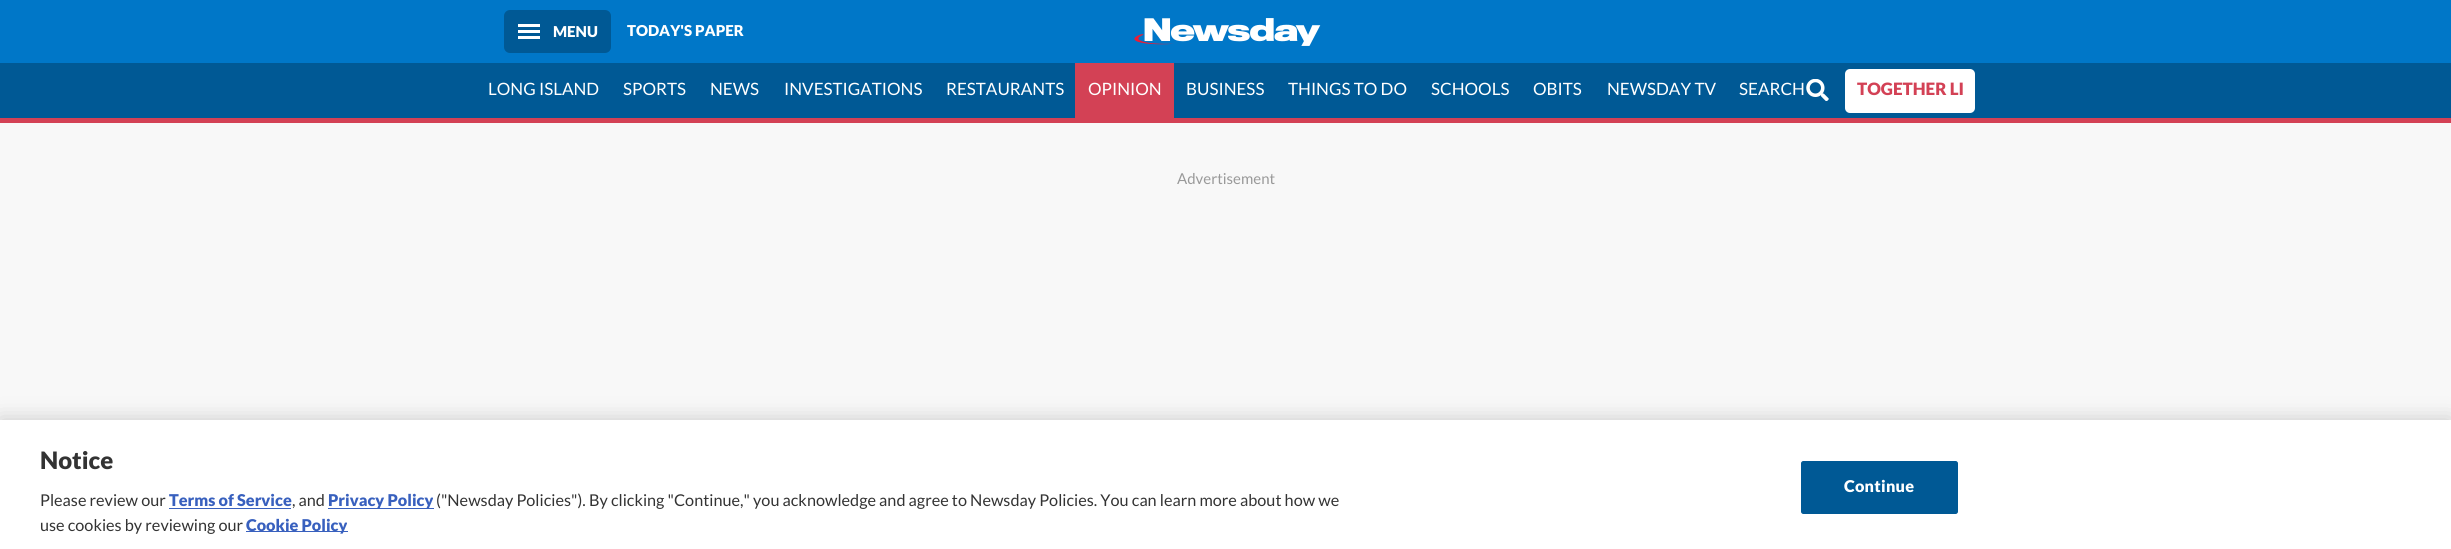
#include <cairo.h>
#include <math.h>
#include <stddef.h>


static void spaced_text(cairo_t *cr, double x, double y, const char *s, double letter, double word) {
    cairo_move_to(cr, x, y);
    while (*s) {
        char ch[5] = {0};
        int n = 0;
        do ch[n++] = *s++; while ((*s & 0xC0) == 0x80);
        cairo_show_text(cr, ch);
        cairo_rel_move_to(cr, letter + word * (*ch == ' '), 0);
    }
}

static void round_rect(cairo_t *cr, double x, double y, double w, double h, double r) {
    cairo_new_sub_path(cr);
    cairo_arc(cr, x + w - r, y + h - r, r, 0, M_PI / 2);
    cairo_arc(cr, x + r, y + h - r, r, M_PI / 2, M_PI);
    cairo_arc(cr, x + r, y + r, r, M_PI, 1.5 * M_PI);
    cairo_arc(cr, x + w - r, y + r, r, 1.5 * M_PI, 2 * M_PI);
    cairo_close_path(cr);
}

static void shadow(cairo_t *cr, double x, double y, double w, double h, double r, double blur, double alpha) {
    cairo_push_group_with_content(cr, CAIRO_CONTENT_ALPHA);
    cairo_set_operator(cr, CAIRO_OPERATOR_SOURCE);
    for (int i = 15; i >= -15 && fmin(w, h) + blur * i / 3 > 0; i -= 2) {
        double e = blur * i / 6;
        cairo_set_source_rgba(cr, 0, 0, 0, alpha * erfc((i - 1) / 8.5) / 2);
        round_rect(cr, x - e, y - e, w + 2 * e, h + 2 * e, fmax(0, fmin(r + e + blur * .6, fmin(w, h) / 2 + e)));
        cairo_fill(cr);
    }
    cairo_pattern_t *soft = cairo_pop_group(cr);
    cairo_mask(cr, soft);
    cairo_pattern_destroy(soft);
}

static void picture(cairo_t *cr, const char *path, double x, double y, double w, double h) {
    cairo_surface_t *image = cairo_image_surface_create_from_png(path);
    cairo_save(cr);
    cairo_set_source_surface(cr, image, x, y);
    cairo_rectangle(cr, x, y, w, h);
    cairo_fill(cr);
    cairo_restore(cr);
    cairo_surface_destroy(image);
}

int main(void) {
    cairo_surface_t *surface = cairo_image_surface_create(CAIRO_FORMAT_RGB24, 2451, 549);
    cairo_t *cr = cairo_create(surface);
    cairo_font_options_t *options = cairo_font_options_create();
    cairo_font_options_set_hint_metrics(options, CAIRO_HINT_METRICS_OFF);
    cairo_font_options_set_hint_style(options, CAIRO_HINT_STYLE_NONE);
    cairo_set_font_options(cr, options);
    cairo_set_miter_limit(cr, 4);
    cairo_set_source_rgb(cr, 0.969, 0.969, 0.969);
    cairo_paint(cr);
    cairo_set_source_rgb(cr, 0, 0.467, 0.784);
    cairo_rectangle(cr, 0, 0, 2451, 63);
    cairo_fill(cr);
    cairo_set_source_rgb(cr, 0, 0.349, 0.584);
    round_rect(cr, 504, 10, 107, 43, 6);
    cairo_fill(cr);
    cairo_set_source_rgb(cr, 1, 1, 1);
    cairo_rectangle(cr, 518, 30, 22, 3);
    cairo_fill(cr);
    cairo_rectangle(cr, 518, 24, 22, 3);
    cairo_fill(cr);
    cairo_rectangle(cr, 518, 36, 22, 3);
    cairo_fill(cr);
    cairo_select_font_face(cr, "Lato Black", CAIRO_FONT_SLANT_NORMAL, CAIRO_FONT_WEIGHT_NORMAL);
    cairo_set_font_size(cr, 15);
    cairo_move_to(cr, 553, 37);
    cairo_show_text(cr, "MENU");
    cairo_move_to(cr, 627, 36);
    cairo_show_text(cr, "TODAY'S PAPER");
    picture(cr, "img1.png", 1134, 18, 187, 28);
    cairo_set_source_rgb(cr, 0, 0.349, 0.584);
    cairo_rectangle(cr, 0, 63, 2451, 55);
    cairo_fill(cr);
    cairo_set_source_rgb(cr, 0.827, 0.255, 0.333);
    cairo_rectangle(cr, 0, 118, 2451, 5);
    cairo_fill(cr);
    cairo_select_font_face(cr, "Lato", CAIRO_FONT_SLANT_NORMAL, CAIRO_FONT_WEIGHT_NORMAL);
    cairo_set_font_size(cr, 17);
    cairo_set_source_rgb(cr, 1, 1, 1);
    cairo_move_to(cr, 488, 95);
    cairo_show_text(cr, "LONG ISLAND");
    cairo_move_to(cr, 623, 95);
    cairo_show_text(cr, "SPORTS");
    cairo_move_to(cr, 710, 95);
    cairo_show_text(cr, "NEWS");
    cairo_move_to(cr, 784, 95);
    cairo_show_text(cr, "INVESTIGATIONS");
    cairo_move_to(cr, 946, 95);
    cairo_show_text(cr, "RESTAURANTS");
    cairo_set_source_rgb(cr, 0.827, 0.255, 0.333);
    cairo_rectangle(cr, 1075, 63, 99, 55);
    cairo_fill(cr);
    cairo_set_source_rgb(cr, 1, 1, 1);
    cairo_move_to(cr, 1088, 95);
    cairo_show_text(cr, "OPINION");
    cairo_move_to(cr, 1186, 95);
    cairo_show_text(cr, "BUSINESS");
    cairo_move_to(cr, 1288, 95);
    cairo_show_text(cr, "THINGS TO DO");
    cairo_move_to(cr, 1431, 95);
    cairo_show_text(cr, "SCHOOLS");
    cairo_move_to(cr, 1533, 95);
    cairo_show_text(cr, "OBITS");
    cairo_move_to(cr, 1607, 95);
    cairo_show_text(cr, "NEWSDAY TV");
    picture(cr, "img2.png", 1806, 79, 23, 22);
    cairo_move_to(cr, 1739, 95);
    cairo_show_text(cr, "SEARCH");
    round_rect(cr, 1845, 69, 130, 44, 5);
    cairo_fill(cr);
    cairo_select_font_face(cr, "Lato Black", CAIRO_FONT_SLANT_NORMAL, CAIRO_FONT_WEIGHT_NORMAL);
    cairo_set_source_rgb(cr, 0.827, 0.255, 0.333);
    cairo_move_to(cr, 1857, 95);
    cairo_show_text(cr, "TOGETHER LI");
    cairo_select_font_face(cr, "Lato", CAIRO_FONT_SLANT_NORMAL, CAIRO_FONT_WEIGHT_NORMAL);
    cairo_set_font_size(cr, 15);
    cairo_set_source_rgb(cr, 0.6, 0.6, 0.6);
    cairo_move_to(cr, 1177, 184);
    cairo_show_text(cr, "Advertisement");
    cairo_set_source_rgb(cr, 0, 0, 0);
    shadow(cr, 0, 420, 2451, 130, 0, 11, 0.2);
    cairo_set_source_rgb(cr, 1, 1, 1);
    cairo_rectangle(cr, 0, 420, 2451, 129);
    cairo_fill(cr);
    cairo_select_font_face(cr, "Lato Black", CAIRO_FONT_SLANT_NORMAL, CAIRO_FONT_WEIGHT_NORMAL);
    cairo_set_font_size(cr, 24);
    cairo_set_source_rgb(cr, 0.2, 0.2, 0.2);
    cairo_move_to(cr, 40, 469);
    cairo_show_text(cr, "Notice");
    cairo_select_font_face(cr, "Lato", CAIRO_FONT_SLANT_NORMAL, CAIRO_FONT_WEIGHT_NORMAL);
    cairo_set_font_size(cr, 16.25);
    cairo_move_to(cr, 40, 506);
    cairo_show_text(cr, "Please review our");
    cairo_select_font_face(cr, "Lato Black", CAIRO_FONT_SLANT_NORMAL, CAIRO_FONT_WEIGHT_NORMAL);
    cairo_set_source_rgb(cr, 0.22, 0.376, 0.745);
    cairo_move_to(cr, 169, 506);
    cairo_show_text(cr, "Terms of Service");
    cairo_rectangle(cr, 169, 508, 122, 1);
    cairo_fill(cr);
    cairo_select_font_face(cr, "Lato", CAIRO_FONT_SLANT_NORMAL, CAIRO_FONT_WEIGHT_NORMAL);
    cairo_set_source_rgb(cr, 0.2, 0.2, 0.2);
    cairo_move_to(cr, 292, 506);
    cairo_show_text(cr, ", and");
    cairo_set_source_rgb(cr, 0.22, 0.376, 0.745);
    cairo_rectangle(cr, 328, 508, 106, 1);
    cairo_fill(cr);
    cairo_select_font_face(cr, "Lato Black", CAIRO_FONT_SLANT_NORMAL, CAIRO_FONT_WEIGHT_NORMAL);
    cairo_move_to(cr, 328, 506);
    cairo_show_text(cr, "Privacy Policy");
    cairo_select_font_face(cr, "Lato", CAIRO_FONT_SLANT_NORMAL, CAIRO_FONT_WEIGHT_NORMAL);
    cairo_set_source_rgb(cr, 0.2, 0.2, 0.2);
    cairo_move_to(cr, 436, 506);
    cairo_show_text(cr, "(\"Newsday Policies\"). By clicking \"Continue,\" you acknowledge and agree to Newsday Policies. You can learn more about how we");
    cairo_move_to(cr, 40, 531);
    cairo_show_text(cr, "use cookies by reviewing our");
    cairo_set_source_rgb(cr, 0.22, 0.376, 0.745);
    cairo_rectangle(cr, 246, 531, 102, 1);
    cairo_fill(cr);
    cairo_select_font_face(cr, "Lato Black", CAIRO_FONT_SLANT_NORMAL, CAIRO_FONT_WEIGHT_NORMAL);
    cairo_move_to(cr, 246, 531);
    cairo_show_text(cr, "Cookie Policy");
    cairo_set_source_rgb(cr, 0, 0.349, 0.584);
    round_rect(cr, 1801.5, 461.5, 156, 52, 2);
    cairo_fill_preserve(cr);
    cairo_set_line_width(cr, 1);
    cairo_stroke(cr);
    cairo_set_source_rgb(cr, 1, 1, 1);
    spaced_text(cr, 1844, 492, "Continue", 0.25, 0);
    cairo_surface_write_to_png(surface, "page.png");
    cairo_font_options_destroy(options);
    cairo_destroy(cr);
    cairo_surface_destroy(surface);
    return 0;
}
